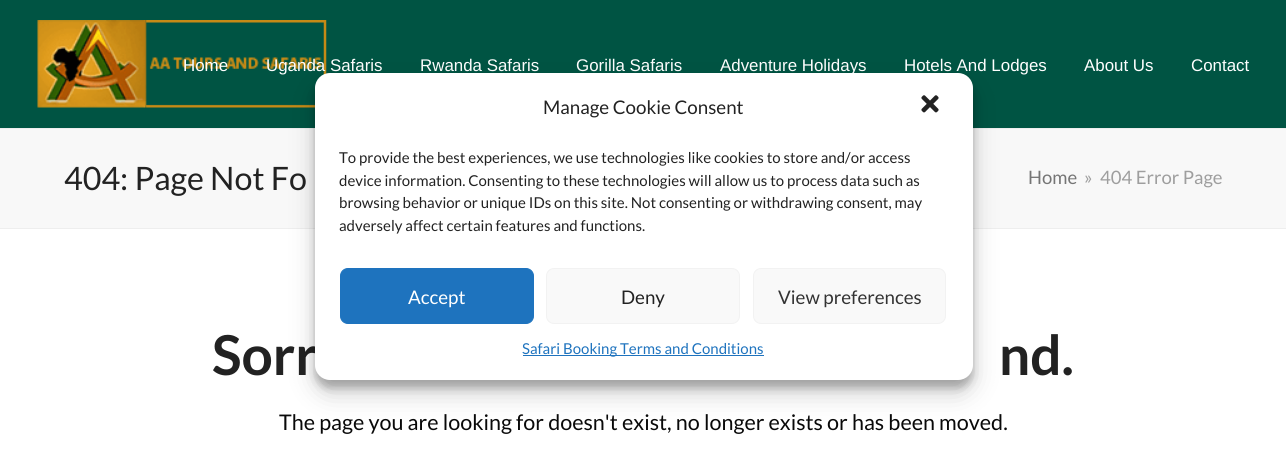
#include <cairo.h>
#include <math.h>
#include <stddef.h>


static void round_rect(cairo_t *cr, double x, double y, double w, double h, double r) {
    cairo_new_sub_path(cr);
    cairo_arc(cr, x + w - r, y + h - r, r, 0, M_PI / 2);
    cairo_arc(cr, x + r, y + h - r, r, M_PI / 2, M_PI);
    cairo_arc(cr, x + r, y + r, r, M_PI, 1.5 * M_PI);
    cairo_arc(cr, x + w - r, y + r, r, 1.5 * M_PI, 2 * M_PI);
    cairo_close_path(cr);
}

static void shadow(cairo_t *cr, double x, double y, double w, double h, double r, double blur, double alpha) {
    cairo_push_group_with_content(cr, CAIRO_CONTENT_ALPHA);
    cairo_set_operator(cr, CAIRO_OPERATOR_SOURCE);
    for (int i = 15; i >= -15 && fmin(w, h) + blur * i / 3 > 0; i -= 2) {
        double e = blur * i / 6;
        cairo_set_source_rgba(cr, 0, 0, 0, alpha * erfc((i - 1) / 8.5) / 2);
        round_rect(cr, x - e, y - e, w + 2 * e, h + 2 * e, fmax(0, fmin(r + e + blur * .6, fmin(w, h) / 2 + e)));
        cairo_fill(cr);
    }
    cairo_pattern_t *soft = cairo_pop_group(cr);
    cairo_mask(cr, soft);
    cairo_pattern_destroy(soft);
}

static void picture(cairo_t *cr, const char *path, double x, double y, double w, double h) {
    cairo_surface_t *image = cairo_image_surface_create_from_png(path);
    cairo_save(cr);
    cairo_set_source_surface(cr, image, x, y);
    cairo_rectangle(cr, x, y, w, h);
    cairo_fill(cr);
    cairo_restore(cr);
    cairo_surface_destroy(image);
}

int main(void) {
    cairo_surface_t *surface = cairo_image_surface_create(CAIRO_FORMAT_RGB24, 1286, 452);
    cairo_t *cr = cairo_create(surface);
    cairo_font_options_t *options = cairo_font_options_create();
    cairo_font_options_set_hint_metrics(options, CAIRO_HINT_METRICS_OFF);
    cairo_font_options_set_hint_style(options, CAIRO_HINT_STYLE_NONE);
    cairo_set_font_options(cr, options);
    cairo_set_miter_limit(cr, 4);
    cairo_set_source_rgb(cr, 1, 1, 1);
    cairo_paint(cr);
    cairo_set_source_rgb(cr, 0, 0.329, 0.263);
    cairo_rectangle(cr, 0, 0, 1286, 128);
    cairo_fill(cr);
    picture(cr, "img1.png", 37, 20, 290, 88);
    cairo_select_font_face(cr, "Liberation Sans", CAIRO_FONT_SLANT_NORMAL, CAIRO_FONT_WEIGHT_NORMAL);
    cairo_set_font_size(cr, 16.9);
    cairo_set_source_rgb(cr, 1, 1, 1);
    cairo_move_to(cr, 183, 71);
    cairo_show_text(cr, "Home");
    cairo_move_to(cr, 266, 71);
    cairo_show_text(cr, "Uganda Safaris");
    cairo_move_to(cr, 420, 71);
    cairo_show_text(cr, "Rwanda Safaris");
    cairo_move_to(cr, 576, 71);
    cairo_show_text(cr, "Gorilla Safaris");
    cairo_move_to(cr, 720, 71);
    cairo_show_text(cr, "Adventure Holidays");
    cairo_move_to(cr, 904, 71);
    cairo_show_text(cr, "Hotels And Lodges");
    cairo_move_to(cr, 1084, 71);
    cairo_show_text(cr, "About Us");
    cairo_move_to(cr, 1191, 71);
    cairo_show_text(cr, "Contact");
    cairo_set_source_rgb(cr, 0.969, 0.969, 0.969);
    cairo_rectangle(cr, 0, 129, 1286, 99);
    cairo_fill(cr);
    cairo_set_source_rgb(cr, 0.933, 0.933, 0.933);
    cairo_rectangle(cr, 0, 128, 1286, 1);
    cairo_fill(cr);
    cairo_rectangle(cr, 0, 228, 1286, 1);
    cairo_fill(cr);
    cairo_select_font_face(cr, "Lato", CAIRO_FONT_SLANT_NORMAL, CAIRO_FONT_WEIGHT_NORMAL);
    cairo_set_font_size(cr, 32.25);
    cairo_set_source_rgb(cr, 0.133, 0.133, 0.133);
    cairo_move_to(cr, 64, 190);
    cairo_show_text(cr, "404: Page Not Fo");
    cairo_set_font_size(cr, 18.5);
    cairo_set_source_rgb(cr, 0.459, 0.459, 0.459);
    cairo_move_to(cr, 1028, 184);
    cairo_show_text(cr, "Home");
    cairo_set_source_rgb(cr, 0.62, 0.62, 0.62);
    cairo_move_to(cr, 1084, 184);
    cairo_show_text(cr, "»");
    cairo_move_to(cr, 1100, 184);
    cairo_show_text(cr, "404 Error Page");
    cairo_select_font_face(cr, "Lato", CAIRO_FONT_SLANT_NORMAL, CAIRO_FONT_WEIGHT_BOLD);
    cairo_set_font_size(cr, 55);
    cairo_set_source_rgb(cr, 0.133, 0.133, 0.133);
    cairo_move_to(cr, 212, 375);
    cairo_show_text(cr, "Sorr");
    cairo_move_to(cr, 999, 375);
    cairo_show_text(cr, "nd.");
    cairo_select_font_face(cr, "Lato", CAIRO_FONT_SLANT_NORMAL, CAIRO_FONT_WEIGHT_NORMAL);
    cairo_set_font_size(cr, 21.55);
    cairo_set_source_rgb(cr, 0.039, 0.039, 0.039);
    cairo_move_to(cr, 279, 430);
    cairo_show_text(cr, "The page you are looking for doesn't exist, no longer exists or has been moved.");
    cairo_set_source_rgb(cr, 0, 0, 0);
    shadow(cr, 315, 80, 658, 308, 15, 4, 0.23);
    shadow(cr, 315, 85, 658, 308, 15, 12.5, 0.19);
    cairo_set_source_rgb(cr, 1, 1, 1);
    round_rect(cr, 315, 73, 658, 307, 15);
    cairo_fill(cr);
    cairo_set_font_size(cr, 18.75);
    cairo_set_source_rgb(cr, 0.133, 0.133, 0.133);
    cairo_move_to(cr, 543, 114);
    cairo_show_text(cr, "Manage Cookie Consent");
    picture(cr, "img2.png", 921, 95, 18, 18);
    cairo_set_font_size(cr, 15);
    cairo_move_to(cr, 339, 163);
    cairo_show_text(cr, "To provide the best experiences, we use technologies like cookies to store and/or access");
    cairo_move_to(cr, 339, 186);
    cairo_show_text(cr, "device information. Consenting to these technologies will allow us to process data such as");
    cairo_move_to(cr, 339, 208);
    cairo_show_text(cr, "browsing behavior or unique IDs on this site. Not consenting or withdrawing consent, may");
    cairo_move_to(cr, 339, 231);
    cairo_show_text(cr, "adversely affect certain features and functions.");
    cairo_set_source_rgb(cr, 0.118, 0.451, 0.745);
    round_rect(cr, 340.5, 268.5, 193, 55, 7.5);
    cairo_fill_preserve(cr);
    cairo_set_line_width(cr, 1);
    cairo_stroke(cr);
    cairo_set_font_size(cr, 18.75);
    cairo_set_source_rgb(cr, 1, 1, 1);
    cairo_move_to(cr, 408, 304);
    cairo_show_text(cr, "Accept");
    cairo_set_source_rgb(cr, 0.976, 0.976, 0.976);
    round_rect(cr, 546.5, 268.5, 193, 55, 7.5);
    cairo_fill_preserve(cr);
    cairo_set_source_rgb(cr, 0.949, 0.949, 0.949);
    cairo_stroke(cr);
    cairo_set_source_rgb(cr, 0.133, 0.133, 0.133);
    cairo_move_to(cr, 621, 304);
    cairo_show_text(cr, "Deny");
    cairo_set_source_rgb(cr, 0.976, 0.976, 0.976);
    round_rect(cr, 753.5, 268.5, 192, 55, 7.5);
    cairo_fill_preserve(cr);
    cairo_set_source_rgb(cr, 0.949, 0.949, 0.949);
    cairo_stroke(cr);
    cairo_set_source_rgb(cr, 0.2, 0.2, 0.2);
    cairo_move_to(cr, 778, 304);
    cairo_show_text(cr, "View preferences");
    cairo_set_source_rgb(cr, 0.118, 0.451, 0.745);
    cairo_rectangle(cr, 523, 355, 241, 1);
    cairo_fill(cr);
    cairo_set_font_size(cr, 15);
    cairo_move_to(cr, 522, 354);
    cairo_show_text(cr, "Safari Booking Terms and Conditions");
    cairo_surface_write_to_png(surface, "page.png");
    cairo_font_options_destroy(options);
    cairo_destroy(cr);
    cairo_surface_destroy(surface);
    return 0;
}
